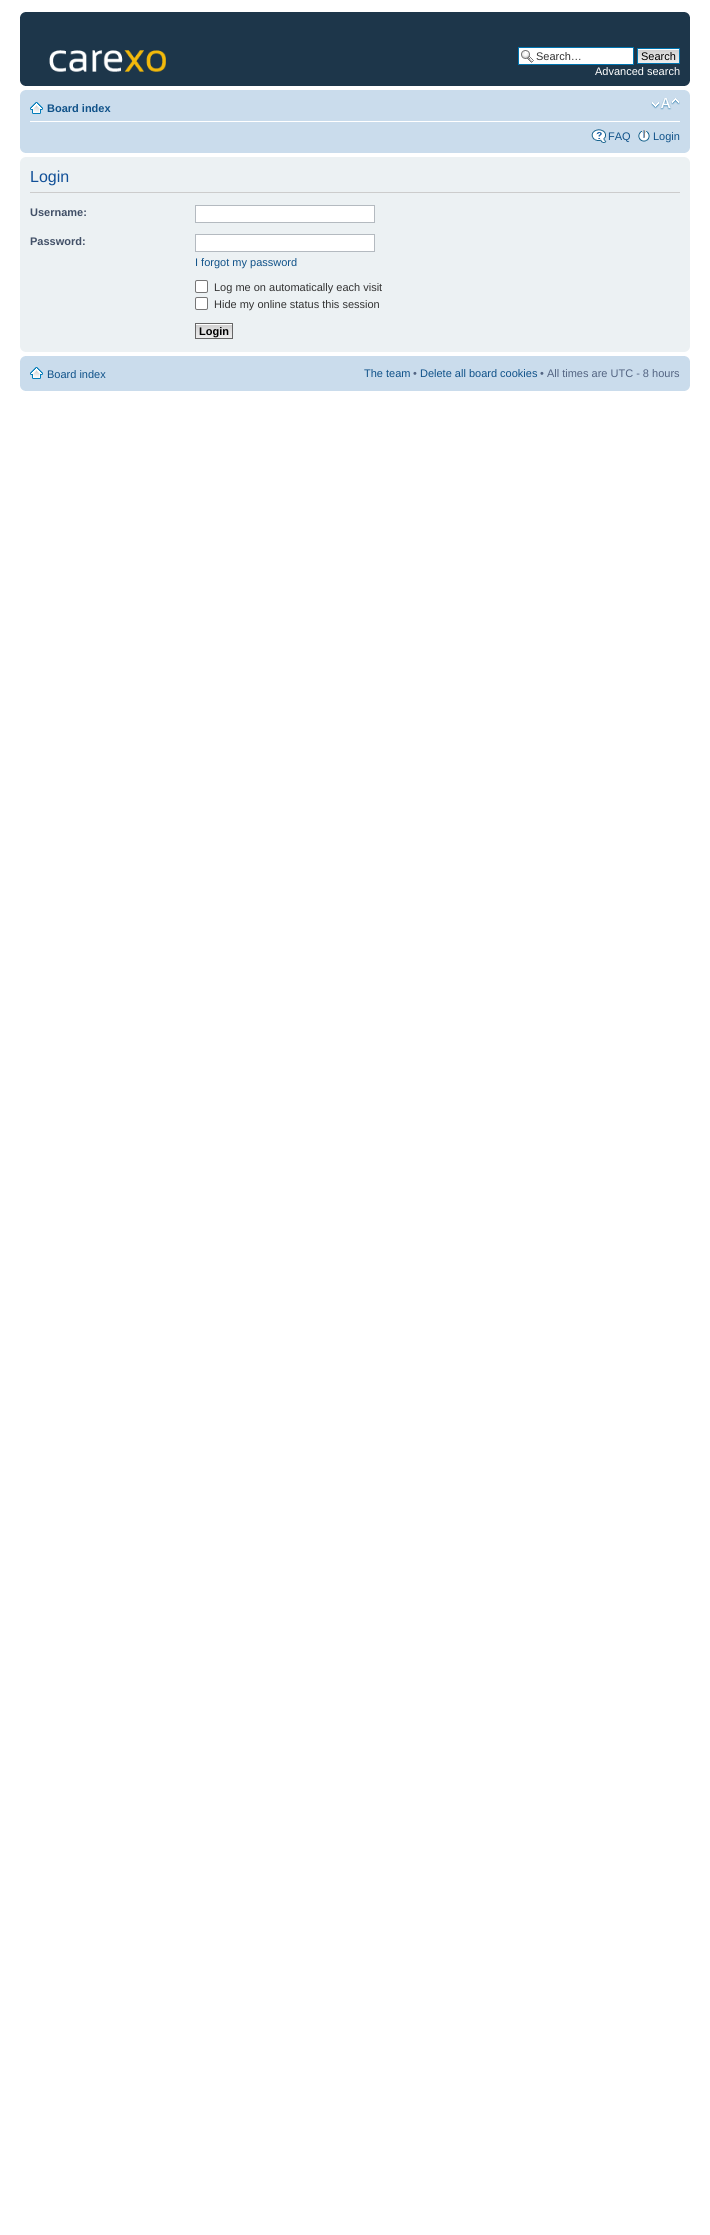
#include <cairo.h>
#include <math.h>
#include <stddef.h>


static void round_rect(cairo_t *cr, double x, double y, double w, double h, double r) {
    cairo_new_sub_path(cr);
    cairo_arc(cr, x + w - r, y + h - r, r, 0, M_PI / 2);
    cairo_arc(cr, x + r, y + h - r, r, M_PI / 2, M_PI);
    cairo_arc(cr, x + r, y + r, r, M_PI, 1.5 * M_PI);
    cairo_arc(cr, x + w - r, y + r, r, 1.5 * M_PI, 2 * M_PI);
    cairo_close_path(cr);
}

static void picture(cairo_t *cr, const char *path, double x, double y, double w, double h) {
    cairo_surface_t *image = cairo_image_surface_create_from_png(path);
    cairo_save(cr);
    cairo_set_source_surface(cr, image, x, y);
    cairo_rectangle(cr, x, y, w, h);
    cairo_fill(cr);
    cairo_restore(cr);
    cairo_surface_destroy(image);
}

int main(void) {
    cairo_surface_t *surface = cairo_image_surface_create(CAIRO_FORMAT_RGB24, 710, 2235);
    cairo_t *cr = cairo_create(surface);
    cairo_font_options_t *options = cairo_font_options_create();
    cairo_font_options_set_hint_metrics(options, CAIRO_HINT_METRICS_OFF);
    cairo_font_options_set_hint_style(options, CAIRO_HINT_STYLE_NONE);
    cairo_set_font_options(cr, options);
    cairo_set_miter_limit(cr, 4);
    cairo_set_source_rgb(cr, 1, 1, 1);
    cairo_paint(cr);
    cairo_set_source_rgb(cr, 0.114, 0.212, 0.29);
    cairo_rectangle(cr, 20, 12, 670, 74);
    cairo_fill(cr);
    picture(cr, "img1.png", 20, 12, 6, 5);
    picture(cr, "img2.png", 684, 12, 6, 5);
    picture(cr, "img3.png", 49, 50, 117, 22);
    cairo_set_source_rgb(cr, 1, 1, 1);
    cairo_rectangle(cr, 519, 48, 114, 16);
    cairo_fill(cr);
    picture(cr, "img4.png", 521, 50, 13, 13);
    cairo_rectangle(cr, 518.5, 47.5, 115, 17);
    cairo_set_source_rgb(cr, 0, 0.459, 0.69);
    cairo_set_line_width(cr, 1);
    cairo_stroke(cr);
    cairo_select_font_face(cr, "Liberation Sans", CAIRO_FONT_SLANT_NORMAL, CAIRO_FONT_WEIGHT_NORMAL);
    cairo_set_font_size(cr, 11);
    cairo_set_source_rgb(cr, 0.2, 0.2, 0.2);
    cairo_move_to(cr, 536, 60);
    cairo_show_text(cr, "Search…");
    picture(cr, "img5.png", 638, 49, 41, 14);
    cairo_rectangle(cr, 637.5, 48.5, 42, 15);
    cairo_set_source_rgb(cr, 0, 0.459, 0.69);
    cairo_stroke(cr);
    cairo_set_source_rgb(cr, 0, 0, 0);
    cairo_move_to(cr, 641, 60);
    cairo_show_text(cr, "Search");
    cairo_set_source_rgb(cr, 1, 1, 1);
    cairo_move_to(cr, 595, 75);
    cairo_show_text(cr, "Advanced search");
    picture(cr, "img6.png", 20, 81, 5, 5);
    picture(cr, "img7.png", 685, 81, 5, 5);
    cairo_set_source_rgb(cr, 0.792, 0.863, 0.922);
    cairo_rectangle(cr, 20, 90, 670, 63);
    cairo_fill(cr);
    picture(cr, "img8.png", 20, 90, 5, 5);
    picture(cr, "img9.png", 685, 90, 5, 5);
    cairo_set_source_rgb(cr, 1, 1, 1);
    cairo_rectangle(cr, 30, 121, 650, 1);
    cairo_fill(cr);
    picture(cr, "img10.png", 30, 102, 13, 12);
    cairo_select_font_face(cr, "Liberation Sans", CAIRO_FONT_SLANT_NORMAL, CAIRO_FONT_WEIGHT_BOLD);
    cairo_set_source_rgb(cr, 0.063, 0.322, 0.537);
    cairo_move_to(cr, 47, 112);
    cairo_show_text(cr, "Board index");
    picture(cr, "img11.png", 651, 98, 29, 12);
    picture(cr, "img12.png", 591, 129, 16, 14);
    cairo_select_font_face(cr, "Liberation Sans", CAIRO_FONT_SLANT_NORMAL, CAIRO_FONT_WEIGHT_NORMAL);
    cairo_move_to(cr, 608, 140);
    cairo_show_text(cr, "FAQ");
    picture(cr, "img13.png", 638, 130, 12, 12);
    cairo_move_to(cr, 653, 140);
    cairo_show_text(cr, "Login");
    picture(cr, "img14.png", 20, 148, 5, 5);
    picture(cr, "img15.png", 685, 148, 5, 5);
    cairo_set_source_rgb(cr, 0.925, 0.945, 0.953);
    cairo_rectangle(cr, 20, 157, 670, 195);
    cairo_fill(cr);
    picture(cr, "img16.png", 20, 157, 5, 5);
    picture(cr, "img17.png", 685, 157, 5, 5);
    cairo_set_source_rgb(cr, 0.8, 0.8, 0.8);
    cairo_rectangle(cr, 30, 192, 650, 1);
    cairo_fill(cr);
    cairo_set_font_size(cr, 16);
    cairo_set_source_rgb(cr, 0.067, 0.314, 0.596);
    cairo_move_to(cr, 30, 182);
    cairo_show_text(cr, "Login");
    cairo_select_font_face(cr, "Liberation Sans", CAIRO_FONT_SLANT_NORMAL, CAIRO_FONT_WEIGHT_BOLD);
    cairo_set_font_size(cr, 11);
    cairo_set_source_rgb(cr, 0.259, 0.314, 0.404);
    cairo_move_to(cr, 30, 216);
    cairo_show_text(cr, "Username:");
    cairo_set_source_rgb(cr, 1, 1, 1);
    cairo_rectangle(cr, 195.5, 205.5, 179, 17);
    cairo_fill_preserve(cr);
    cairo_set_source_rgb(cr, 0.706, 0.729, 0.753);
    cairo_stroke(cr);
    cairo_set_source_rgb(cr, 0.259, 0.314, 0.404);
    cairo_move_to(cr, 30, 245);
    cairo_show_text(cr, "Password:");
    cairo_set_source_rgb(cr, 1, 1, 1);
    cairo_rectangle(cr, 195.5, 234.5, 179, 17);
    cairo_fill_preserve(cr);
    cairo_set_source_rgb(cr, 0.706, 0.729, 0.753);
    cairo_stroke(cr);
    cairo_select_font_face(cr, "Liberation Sans", CAIRO_FONT_SLANT_NORMAL, CAIRO_FONT_WEIGHT_NORMAL);
    cairo_set_source_rgb(cr, 0.063, 0.322, 0.537);
    cairo_move_to(cr, 195, 266);
    cairo_show_text(cr, "I forgot my password");
    cairo_set_source_rgb(cr, 1, 1, 1);
    round_rect(cr, 195.5, 280.5, 12, 12, 1.5);
    cairo_fill_preserve(cr);
    cairo_set_source_rgb(cr, 0.463, 0.463, 0.463);
    cairo_stroke(cr);
    cairo_set_source_rgb(cr, 0.2, 0.2, 0.2);
    cairo_move_to(cr, 214, 291);
    cairo_show_text(cr, "Log me on automatically each visit");
    cairo_set_source_rgb(cr, 1, 1, 1);
    round_rect(cr, 195.5, 297.5, 12, 12, 1.5);
    cairo_fill_preserve(cr);
    cairo_set_source_rgb(cr, 0.463, 0.463, 0.463);
    cairo_stroke(cr);
    cairo_set_source_rgb(cr, 0.2, 0.2, 0.2);
    cairo_move_to(cr, 214, 308);
    cairo_show_text(cr, "Hide my online status this session");
    picture(cr, "img18.png", 196, 324, 36, 14);
    cairo_rectangle(cr, 195.5, 323.5, 37, 15);
    cairo_set_source_rgb(cr, 0.4, 0.4, 0.4);
    cairo_stroke(cr);
    cairo_select_font_face(cr, "Liberation Sans", CAIRO_FONT_SLANT_NORMAL, CAIRO_FONT_WEIGHT_BOLD);
    cairo_set_source_rgb(cr, 0, 0, 0);
    cairo_move_to(cr, 199, 335);
    cairo_show_text(cr, "Login");
    picture(cr, "img19.png", 20, 347, 5, 5);
    picture(cr, "img20.png", 685, 347, 5, 5);
    cairo_set_source_rgb(cr, 0.792, 0.863, 0.922);
    cairo_rectangle(cr, 20, 356, 670, 35);
    cairo_fill(cr);
    picture(cr, "img8.png", 20, 356, 5, 5);
    picture(cr, "img9.png", 685, 356, 5, 5);
    picture(cr, "img10.png", 30, 367, 13, 12);
    cairo_select_font_face(cr, "Liberation Sans", CAIRO_FONT_SLANT_NORMAL, CAIRO_FONT_WEIGHT_NORMAL);
    cairo_set_source_rgb(cr, 0.063, 0.322, 0.537);
    cairo_move_to(cr, 47, 378);
    cairo_show_text(cr, "Board index");
    cairo_move_to(cr, 364, 377);
    cairo_show_text(cr, "The team");
    cairo_set_source_rgb(cr, 0.325, 0.392, 0.51);
    cairo_move_to(cr, 413, 377);
    cairo_show_text(cr, "•");
    cairo_set_source_rgb(cr, 0.063, 0.322, 0.537);
    cairo_move_to(cr, 420, 377);
    cairo_show_text(cr, "Delete all board cookies");
    cairo_set_source_rgb(cr, 0.325, 0.392, 0.51);
    cairo_move_to(cr, 540, 377);
    cairo_show_text(cr, "• All times are UTC - 8 hours");
    picture(cr, "img14.png", 20, 386, 5, 5);
    picture(cr, "img15.png", 685, 386, 5, 5);
    cairo_surface_write_to_png(surface, "page.png");
    cairo_font_options_destroy(options);
    cairo_destroy(cr);
    cairo_surface_destroy(surface);
    return 0;
}
